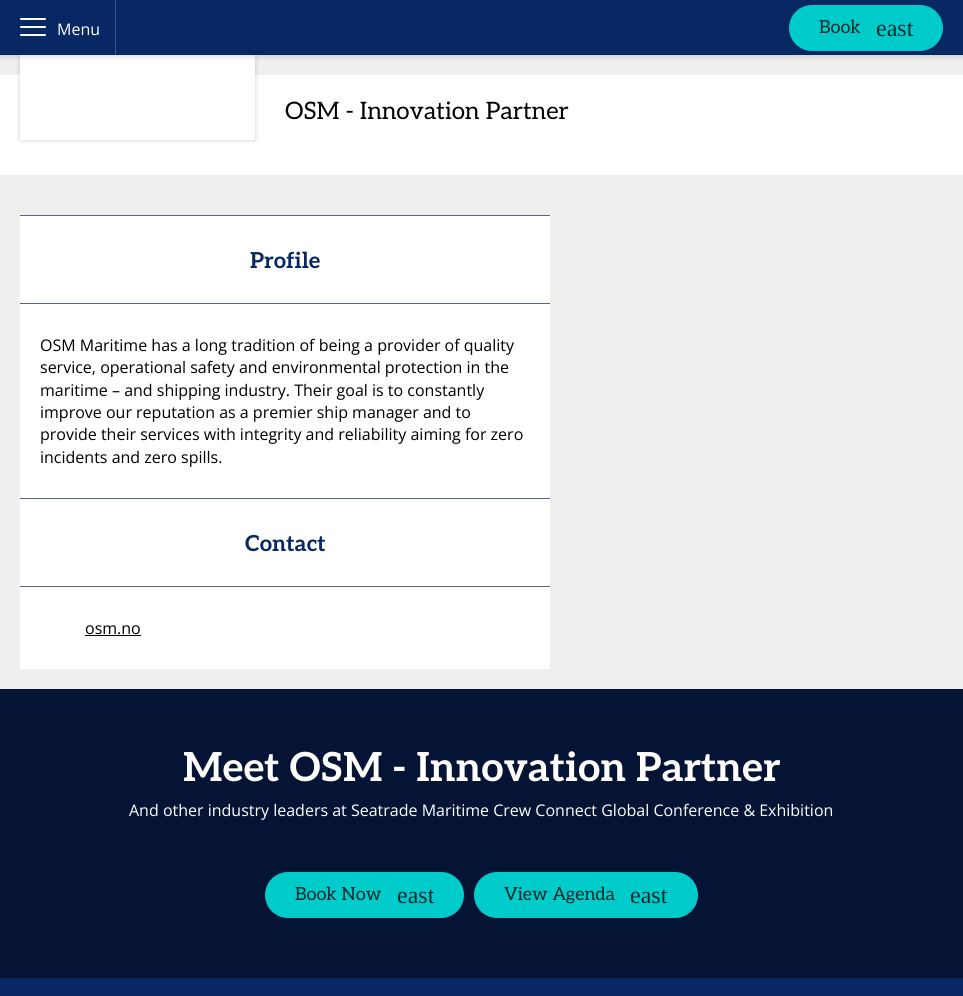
#include <cairo.h>
#include <math.h>
#include <stddef.h>


static void round_rect(cairo_t *cr, double x, double y, double w, double h, double r) {
    cairo_new_sub_path(cr);
    cairo_arc(cr, x + w - r, y + h - r, r, 0, M_PI / 2);
    cairo_arc(cr, x + r, y + h - r, r, M_PI / 2, M_PI);
    cairo_arc(cr, x + r, y + r, r, M_PI, 1.5 * M_PI);
    cairo_arc(cr, x + w - r, y + r, r, 1.5 * M_PI, 2 * M_PI);
    cairo_close_path(cr);
}

static void shadow(cairo_t *cr, double x, double y, double w, double h, double r, double blur, double alpha) {
    cairo_push_group_with_content(cr, CAIRO_CONTENT_ALPHA);
    cairo_set_operator(cr, CAIRO_OPERATOR_SOURCE);
    for (int i = 15; i >= -15 && fmin(w, h) + blur * i / 3 > 0; i -= 2) {
        double e = blur * i / 6;
        cairo_set_source_rgba(cr, 0, 0, 0, alpha * erfc((i - 1) / 8.5) / 2);
        round_rect(cr, x - e, y - e, w + 2 * e, h + 2 * e, fmax(0, fmin(r + e + blur * .6, fmin(w, h) / 2 + e)));
        cairo_fill(cr);
    }
    cairo_pattern_t *soft = cairo_pop_group(cr);
    cairo_mask(cr, soft);
    cairo_pattern_destroy(soft);
}

int main(void) {
    cairo_surface_t *surface = cairo_image_surface_create(CAIRO_FORMAT_RGB24, 963, 996);
    cairo_t *cr = cairo_create(surface);
    cairo_font_options_t *options = cairo_font_options_create();
    cairo_font_options_set_hint_metrics(options, CAIRO_HINT_METRICS_OFF);
    cairo_font_options_set_hint_style(options, CAIRO_HINT_STYLE_NONE);
    cairo_set_font_options(cr, options);
    cairo_set_miter_limit(cr, 4);
    cairo_pattern_t *gradient;
    cairo_set_source_rgb(cr, 0.937, 0.937, 0.937);
    cairo_paint(cr);
    cairo_set_source_rgb(cr, 1, 1, 1);
    cairo_rectangle(cr, 0, 75, 963, 100);
    cairo_fill(cr);
    cairo_set_source_rgb(cr, 0, 0, 0);
    shadow(cr, 20, 10, 235, 130, 0, 2.5, 0.2);
    cairo_set_source_rgb(cr, 0.035, 0.157, 0.392);
    cairo_rectangle(cr, 0, 0, 963, 55);
    cairo_fill(cr);
    cairo_set_source_rgb(cr, 1, 1, 1);
    round_rect(cr, 20, 18, 26, 2, 1);
    cairo_fill(cr);
    round_rect(cr, 20, 26, 26, 2, 1);
    cairo_fill(cr);
    round_rect(cr, 20, 34, 26, 2, 1);
    cairo_fill(cr);
    cairo_select_font_face(cr, "Open Sans", CAIRO_FONT_SLANT_NORMAL, CAIRO_FONT_WEIGHT_NORMAL);
    cairo_set_font_size(cr, 16);
    cairo_move_to(cr, 57, 35);
    cairo_show_text(cr, "Menu");
    cairo_set_source_rgb(cr, 0.227, 0.325, 0.514);
    cairo_rectangle(cr, 115, 0, 1, 55);
    cairo_fill(cr);
    cairo_set_source_rgb(cr, 0, 0, 0);
    shadow(cr, 789, 6, 154, 46, 23, 1.5, 0.2);
    cairo_set_source_rgb(cr, 0, 0.796, 0.796);
    round_rect(cr, 789, 5, 154, 46, 23);
    cairo_fill(cr);
    cairo_select_font_face(cr, "Aleo", CAIRO_FONT_SLANT_NORMAL, CAIRO_FONT_WEIGHT_NORMAL);
    cairo_set_font_size(cr, 18);
    cairo_set_source_rgb(cr, 0, 0.161, 0.161);
    cairo_move_to(cr, 819, 33);
    cairo_show_text(cr, "Book");
    cairo_select_font_face(cr, "Liberation Serif", CAIRO_FONT_SLANT_NORMAL, CAIRO_FONT_WEIGHT_NORMAL);
    cairo_set_font_size(cr, 24);
    cairo_move_to(cr, 876, 36);
    cairo_show_text(cr, "east");
    cairo_set_source_rgb(cr, 1, 1, 1);
    cairo_rectangle(cr, 20, 55, 235, 85);
    cairo_fill(cr);
    gradient = cairo_pattern_create_linear(482, 55, 482, 61);
    cairo_pattern_add_color_stop_rgba(gradient, 0, 0, 0, 0, 0.1);
    cairo_pattern_add_color_stop_rgba(gradient, 1, 0, 0, 0, 0);
    cairo_set_source(cr, gradient);
    cairo_pattern_destroy(gradient);
    cairo_rectangle(cr, 0, 55, 963, 5);
    cairo_fill(cr);
    cairo_select_font_face(cr, "Aleo", CAIRO_FONT_SLANT_NORMAL, CAIRO_FONT_WEIGHT_NORMAL);
    cairo_set_source_rgb(cr, 0, 0, 0);
    cairo_move_to(cr, 285, 119);
    cairo_show_text(cr, "OSM - Innovation Partner");
    cairo_set_source_rgb(cr, 1, 1, 1);
    cairo_rectangle(cr, 20, 216, 530, 282);
    cairo_fill(cr);
    cairo_set_source_rgb(cr, 0.357, 0.388, 0.518);
    cairo_rectangle(cr, 20, 215, 530, 1);
    cairo_fill(cr);
    cairo_rectangle(cr, 20, 303, 530, 1);
    cairo_fill(cr);
    cairo_select_font_face(cr, "Aleo", CAIRO_FONT_SLANT_NORMAL, CAIRO_FONT_WEIGHT_BOLD);
    cairo_set_font_size(cr, 22);
    cairo_set_source_rgb(cr, 0.035, 0.157, 0.392);
    cairo_move_to(cr, 250, 268);
    cairo_show_text(cr, "Profile");
    cairo_select_font_face(cr, "Open Sans", CAIRO_FONT_SLANT_NORMAL, CAIRO_FONT_WEIGHT_NORMAL);
    cairo_set_font_size(cr, 16);
    cairo_set_source_rgb(cr, 0, 0, 0);
    cairo_move_to(cr, 40, 351);
    cairo_show_text(cr, "OSM Maritime has a long tradition of being a provider of quality");
    cairo_move_to(cr, 40, 373);
    cairo_show_text(cr, "service, operational safety and environmental protection in the");
    cairo_move_to(cr, 40, 396);
    cairo_show_text(cr, "maritime – and shipping industry. Their goal is to constantly");
    cairo_move_to(cr, 40, 418);
    cairo_show_text(cr, "improve our reputation as a premier ship manager and to");
    cairo_move_to(cr, 40, 440);
    cairo_show_text(cr, "provide their services with integrity and reliability aiming for zero");
    cairo_move_to(cr, 40, 463);
    cairo_show_text(cr, "incidents and zero spills.");
    cairo_set_source_rgb(cr, 1, 1, 1);
    cairo_rectangle(cr, 20, 499, 530, 170);
    cairo_fill(cr);
    cairo_set_source_rgb(cr, 0.357, 0.388, 0.518);
    cairo_rectangle(cr, 20, 498, 530, 1);
    cairo_fill(cr);
    cairo_rectangle(cr, 20, 586, 530, 1);
    cairo_fill(cr);
    cairo_select_font_face(cr, "Aleo", CAIRO_FONT_SLANT_NORMAL, CAIRO_FONT_WEIGHT_BOLD);
    cairo_set_font_size(cr, 22);
    cairo_set_source_rgb(cr, 0.035, 0.157, 0.392);
    cairo_move_to(cr, 245, 551);
    cairo_show_text(cr, "Contact");
    cairo_select_font_face(cr, "Open Sans", CAIRO_FONT_SLANT_NORMAL, CAIRO_FONT_WEIGHT_NORMAL);
    cairo_set_font_size(cr, 16);
    cairo_set_source_rgb(cr, 0, 0, 0);
    cairo_move_to(cr, 85, 634);
    cairo_show_text(cr, "osm.no");
    cairo_rectangle(cr, 85, 635, 56, 1);
    cairo_fill(cr);
    cairo_set_source_rgb(cr, 0.02, 0.082, 0.208);
    cairo_rectangle(cr, 0, 689, 963, 289);
    cairo_fill(cr);
    cairo_select_font_face(cr, "Aleo", CAIRO_FONT_SLANT_NORMAL, CAIRO_FONT_WEIGHT_BOLD);
    cairo_set_font_size(cr, 40);
    cairo_set_source_rgb(cr, 1, 1, 1);
    cairo_move_to(cr, 183, 781);
    cairo_show_text(cr, "Meet OSM - Innovation Partner");
    cairo_select_font_face(cr, "Open Sans", CAIRO_FONT_SLANT_NORMAL, CAIRO_FONT_WEIGHT_NORMAL);
    cairo_set_font_size(cr, 16);
    cairo_move_to(cr, 129, 816);
    cairo_show_text(cr, "And other industry leaders at Seatrade Maritime Crew Connect Global Conference & Exhibition");
    cairo_set_source_rgb(cr, 0, 0, 0);
    shadow(cr, 265, 873, 199, 46, 23, 1.5, 0.2);
    cairo_set_source_rgb(cr, 0, 0.796, 0.796);
    round_rect(cr, 265, 872, 199, 46, 23);
    cairo_fill(cr);
    cairo_select_font_face(cr, "Aleo", CAIRO_FONT_SLANT_NORMAL, CAIRO_FONT_WEIGHT_NORMAL);
    cairo_set_font_size(cr, 18);
    cairo_set_source_rgb(cr, 0, 0.161, 0.161);
    cairo_move_to(cr, 295, 900);
    cairo_show_text(cr, "Book Now");
    cairo_select_font_face(cr, "Liberation Serif", CAIRO_FONT_SLANT_NORMAL, CAIRO_FONT_WEIGHT_NORMAL);
    cairo_set_font_size(cr, 24);
    cairo_move_to(cr, 397, 903);
    cairo_show_text(cr, "east");
    cairo_set_source_rgb(cr, 0, 0, 0);
    shadow(cr, 474, 873, 224, 46, 23, 1.5, 0.2);
    cairo_set_source_rgb(cr, 0, 0.796, 0.796);
    round_rect(cr, 474, 872, 224, 46, 23);
    cairo_fill(cr);
    cairo_select_font_face(cr, "Aleo", CAIRO_FONT_SLANT_NORMAL, CAIRO_FONT_WEIGHT_NORMAL);
    cairo_set_font_size(cr, 18);
    cairo_set_source_rgb(cr, 0, 0.161, 0.161);
    cairo_move_to(cr, 504, 900);
    cairo_show_text(cr, "View Agenda");
    cairo_select_font_face(cr, "Liberation Serif", CAIRO_FONT_SLANT_NORMAL, CAIRO_FONT_WEIGHT_NORMAL);
    cairo_set_font_size(cr, 24);
    cairo_move_to(cr, 630, 903);
    cairo_show_text(cr, "east");
    cairo_set_source_rgb(cr, 0.035, 0.157, 0.392);
    cairo_rectangle(cr, 0, 978, 963, 18);
    cairo_fill(cr);
    cairo_surface_write_to_png(surface, "page.png");
    cairo_font_options_destroy(options);
    cairo_destroy(cr);
    cairo_surface_destroy(surface);
    return 0;
}
